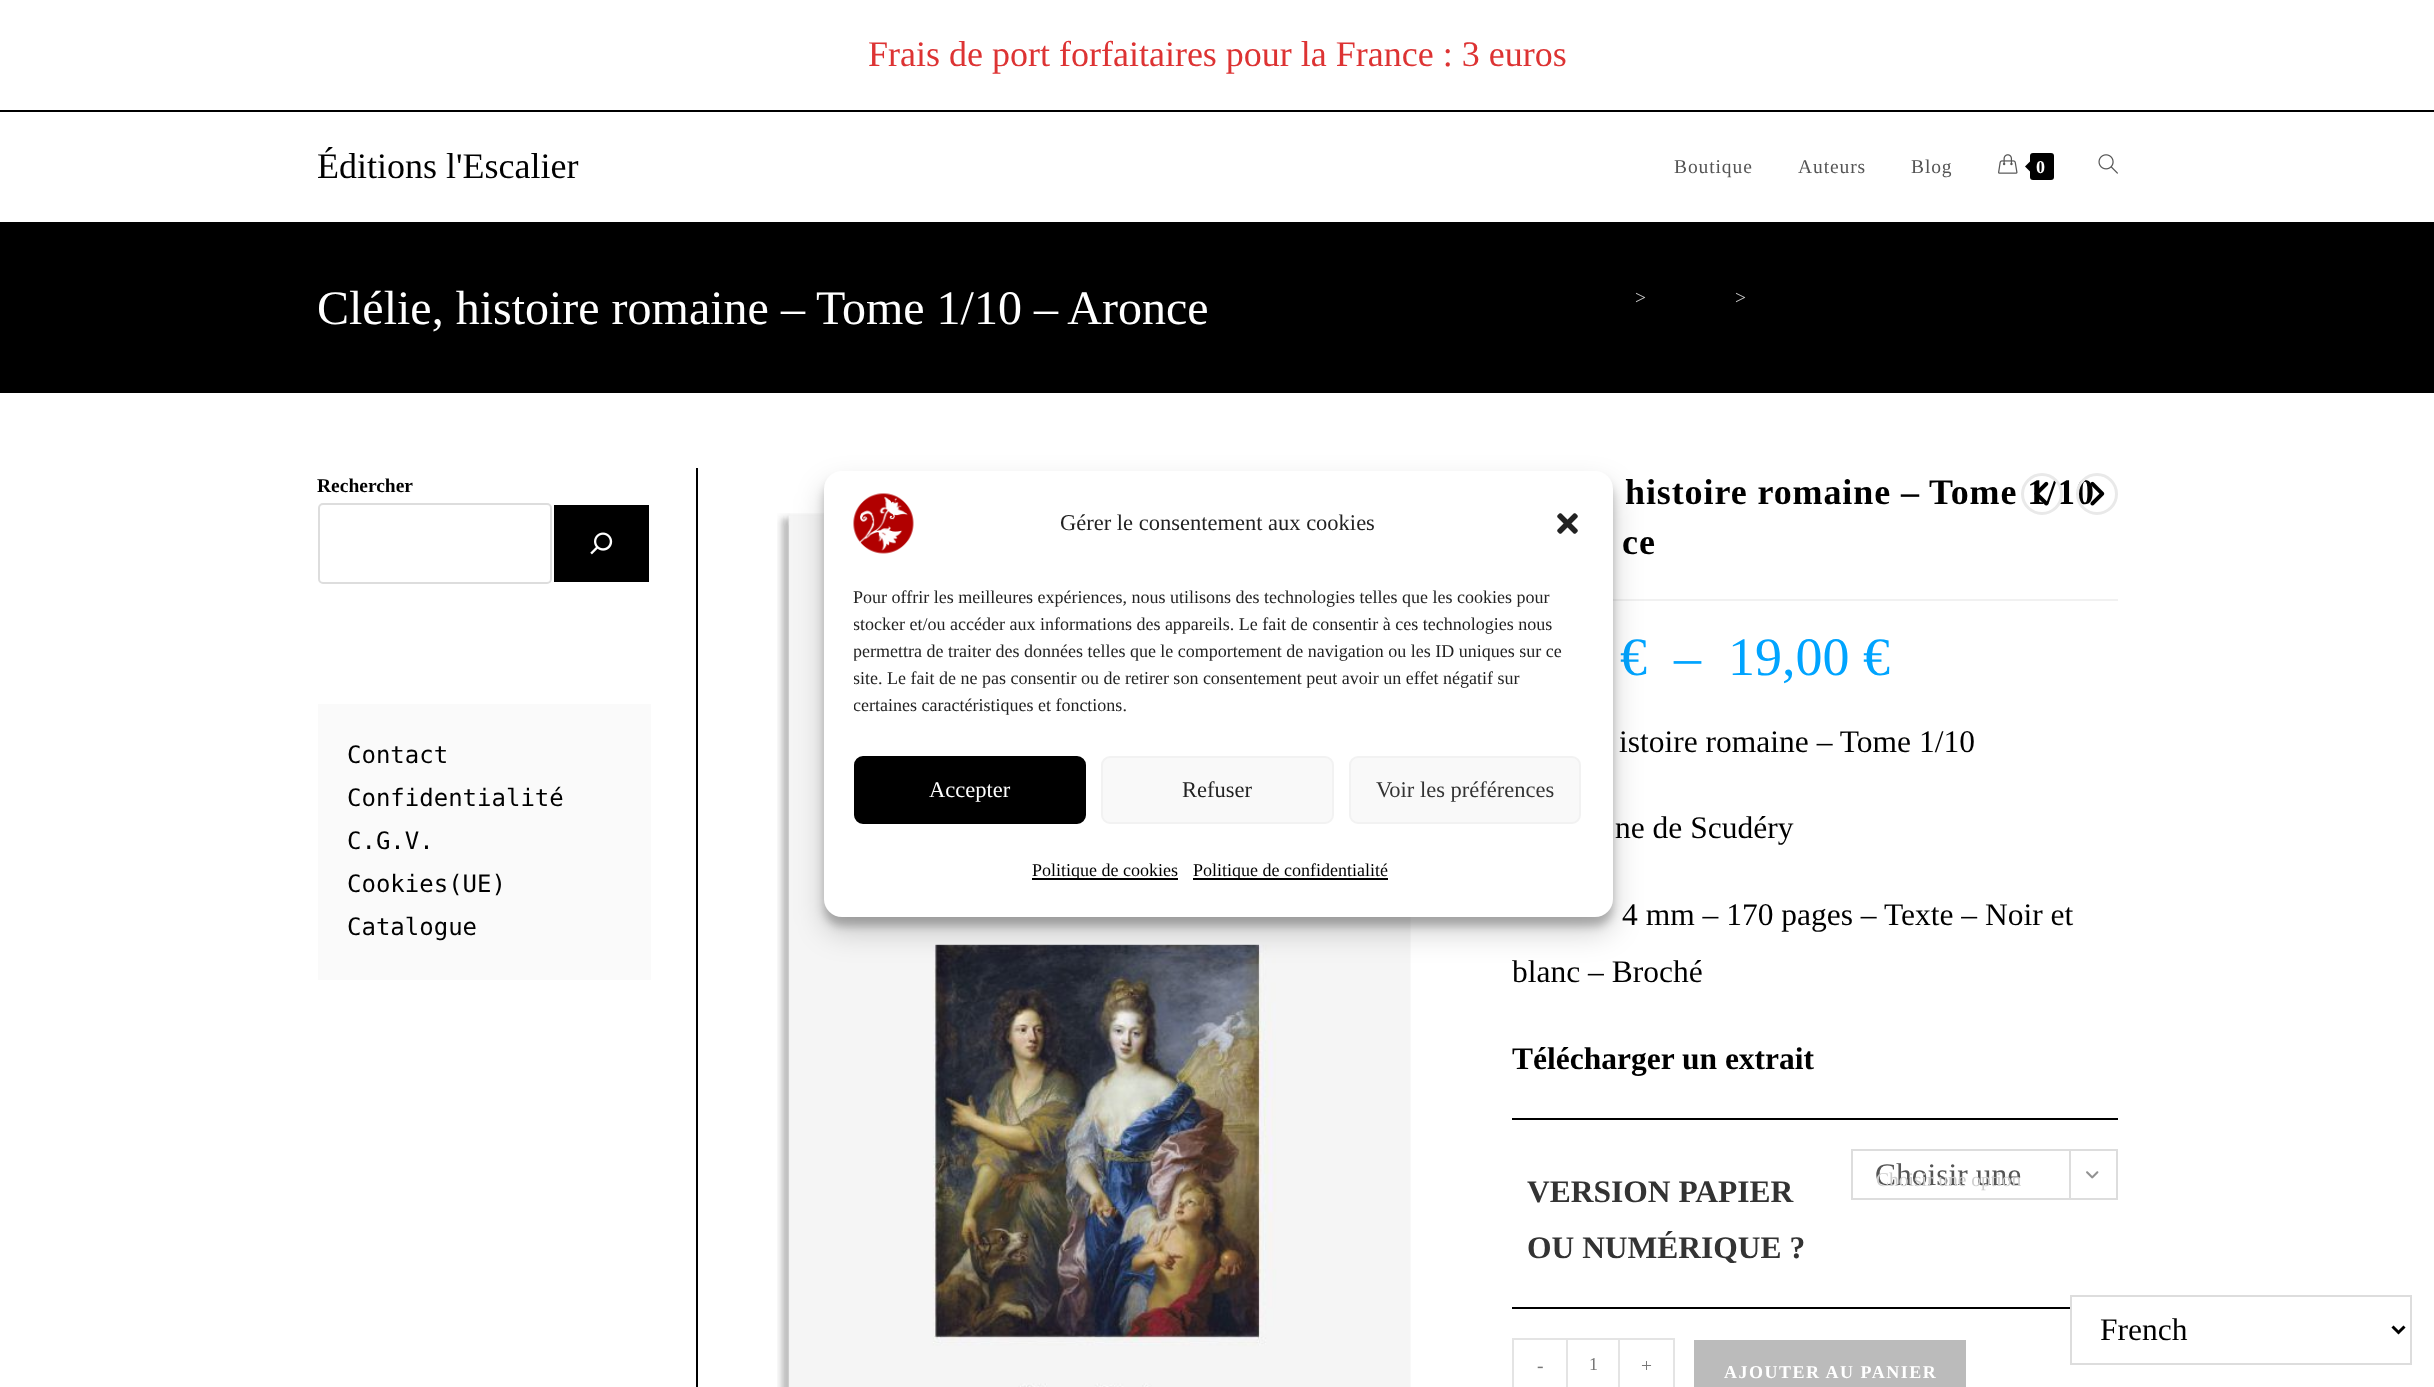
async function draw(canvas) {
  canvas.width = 2434;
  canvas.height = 1387;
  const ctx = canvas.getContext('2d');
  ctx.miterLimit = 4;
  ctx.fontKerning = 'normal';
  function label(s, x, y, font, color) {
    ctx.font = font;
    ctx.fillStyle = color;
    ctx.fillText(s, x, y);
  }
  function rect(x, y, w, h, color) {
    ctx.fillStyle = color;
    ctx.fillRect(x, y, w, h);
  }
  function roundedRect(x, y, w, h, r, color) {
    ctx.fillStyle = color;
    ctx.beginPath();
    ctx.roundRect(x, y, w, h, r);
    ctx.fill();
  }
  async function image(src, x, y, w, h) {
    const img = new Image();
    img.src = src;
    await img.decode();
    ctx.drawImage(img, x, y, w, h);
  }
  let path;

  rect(0, 0, 2434, 1387, '#fff');
  rect(0, 110, 2434, 2, '#000');
  label('Frais de port forfaitaires pour la France : 3 euros', 868, 66, '36px Liberation Serif', '#d33');
  label('Éditions l\'Escalier', 317, 178, '36px Liberation Serif', '#000');
  ctx.letterSpacing = '0.9px';
  label('Boutique', 1674, 173, '19.5px Liberation Serif', '#555');
  label('Auteurs', 1798, 173, '19.5px Liberation Serif', '#555');
  label('Blog', 1911, 173, '19.5px Liberation Serif', '#555');
  await image('assets/img1.png', 1998, 154, 20, 20);
  roundedRect(2030, 153, 24, 27, 3, '#000');
  path = new Path2D('M2032.5 159V174L2025 166.5Z');
  ctx.fill(path);
  ctx.letterSpacing = '0px';
  label('0', 2036, 173, 'bold 18px Liberation Serif', '#fff');
  await image('assets/img2.png', 2098, 154, 20, 20);
  rect(0, 222, 2434, 171, '#000');
  label('Clélie, histoire romaine – Tome 1/10 – Aronce', 317, 324, '48px Liberation Serif', '#fff');
  label('>', 1635, 304, '19.5px Liberation Serif', '#c6c6c6');
  label('>', 1735, 304, '19.5px Liberation Serif', '#c6c6c6');
  label('Rechercher', 317, 492, 'bold 19.5px Liberation Serif', '#000');
  ctx.beginPath();
  ctx.roundRect(319, 504, 232, 79, 4);
  ctx.strokeStyle = '#ddd';
  ctx.lineWidth = 2;
  ctx.stroke();
  rect(554, 505, 95, 77, '#000');
  await image('assets/img3.png', 590, 532, 23, 23);
  rect(318, 704, 333, 276, '#fafafa');
  label('Contact', 347, 763, '24px DejaVu Sans Mono', '#000');
  label('Confidentialité', 347, 806, '24px DejaVu Sans Mono', '#000');
  label('C.G.V.', 347, 849, '24px DejaVu Sans Mono', '#000');
  label('Cookies(UE)', 347, 892, '24px DejaVu Sans Mono', '#000');
  label('Catalogue', 347, 935, '24px DejaVu Sans Mono', '#000');
  rect(696, 468, 2, 919, '#000');
  ctx.letterSpacing = '0.9px';
  label('histoire romaine – Tome 1/10', 1625, 504, 'bold 36px Liberation Serif', '#000');
  ctx.beginPath();
  ctx.arc(2042, 494, 19.5, 0, 2 * Math.PI);
  ctx.strokeStyle = '#e9e9e9';
  ctx.lineWidth = 3;
  ctx.stroke();
  await image('assets/img4.png', 2034, 481, 15, 25);
  ctx.beginPath();
  ctx.arc(2097, 494, 19.5, 0, 2 * Math.PI);
  ctx.stroke();
  await image('assets/img5.png', 2090, 481, 15, 25);
  await image('assets/img6.png', 777, 513, 634, 874);
  rect(1613, 599, 505, 2, '#f1f1f1');
  label('ce', 1622, 554, 'bold 36px Liberation Serif', '#000');
  ctx.letterSpacing = '0px';
  label('€', 1620, 675, '54px Liberation Serif', '#00a4ff');
  label('–', 1674, 675, '54px Liberation Serif', '#00a4ff');
  label('19,00 €', 1728, 675, '54px Liberation Serif', '#00a4ff');
  label('istoire romaine – Tome 1/10', 1619, 752, '31.5px Liberation Serif', '#000');
  label('ne de Scudéry', 1615, 838, '31.5px Liberation Serif', '#000');
  label('4 mm – 170 pages – Texte – Noir et', 1622, 925, '31.5px Liberation Serif', '#000');
  label('blanc – Broché', 1512, 982, '31.5px Liberation Serif', '#000');
  label('Télécharger un extrait', 1512, 1069, 'bold 31.5px Liberation Serif', '#000');
  rect(1512, 1118, 606, 2, '#000');
  rect(1512, 1307, 558, 2, '#000');
  ctx.strokeStyle = '#ddd';
  ctx.lineWidth = 2;
  ctx.strokeRect(1852, 1150, 265, 49);
  label('Choisir une', 1875, 1185, '31.5px Liberation Serif', '#555');
  rect(2069, 1151, 2, 48, '#ddd');
  await image('assets/img7.png', 2086, 1171, 13, 8);
  label('Choisir une option', 1876, 1186, '19.5px Liberation Serif', '#cecece');
  label('VERSION PAPIER', 1527, 1202, 'bold 31.5px Liberation Serif', '#333');
  label('OU NUMÉRIQUE ?', 1527, 1258, 'bold 31.5px Liberation Serif', '#333');
  rect(1512, 1338, 54, 2, '#e4e4e4');
  rect(1512, 1338, 2, 49, '#e4e4e4');
  label('-', 1537, 1372, '19.5px Liberation Serif', '#777');
  ctx.strokeStyle = '#e4e4e4';
  ctx.strokeRect(1567, 1339, 52, 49);
  label('1', 1589, 1370, '18px Liberation Serif', '#777');
  rect(1620, 1338, 54, 2, '#e4e4e4');
  rect(1673, 1338, 2, 49, '#e4e4e4');
  label('+', 1641, 1372, '19.5px Liberation Serif', '#777');
  rect(1694, 1340, 272, 47, '#bbb');
  ctx.letterSpacing = '1.5px';
  label('AJOUTER AU PANIER', 1724, 1378, 'bold 18px Liberation Serif', '#fff');
  ctx.fillStyle = '#0000003b';
  ctx.filter = 'blur(4.5px)';
  ctx.beginPath();
  ctx.roundRect(824, 480, 789, 446, 18);
  ctx.fill();
  ctx.filter = 'none';
  ctx.fillStyle = '#00000030';
  ctx.filter = 'blur(15px)';
  ctx.beginPath();
  ctx.roundRect(824, 486, 789, 446, 18);
  ctx.fill();
  ctx.filter = 'none';
  roundedRect(824, 471, 789, 446, 18, '#fff');
  await image('assets/img8.png', 853, 493, 61, 61);
  ctx.letterSpacing = '0px';
  label('Gérer le consentement aux cookies', 1060, 530, '22.5px Liberation Serif', '#222');
  await image('assets/img9.png', 1557, 513, 21, 21);
  label('Pour offrir les meilleures expériences, nous utilisons des technologies telles que les cookies pour', 853, 603, '18px Liberation Serif', '#222');
  ctx.save();
  ctx.beginPath();
  ctx.rect(854, 584, 729, 142);
  ctx.clip();
  label('stocker et/ou accéder aux informations des appareils. Le fait de consentir à ces technologies nous', 853, 630, '18px Liberation Serif', '#222');
  label('permettra de traiter des données telles que le comportement de navigation ou les ID uniques sur ce', 853, 657, '18px Liberation Serif', '#222');
  label('site. Le fait de ne pas consentir ou de retirer son consentement peut avoir un effet négatif sur', 853, 684, '18px Liberation Serif', '#222');
  label('certaines caractéristiques et fonctions.', 853, 711, '18px Liberation Serif', '#222');
  ctx.restore();
  ctx.fillStyle = '#000';
  ctx.beginPath();
  ctx.roundRect(855, 757, 230, 66, 8);
  ctx.fill();
  ctx.strokeStyle = '#000';
  ctx.stroke();
  label('Accepter', 929, 797, '22.5px Liberation Serif', '#fff');
  ctx.fillStyle = '#f9f9f9';
  ctx.beginPath();
  ctx.roundRect(1102, 757, 231, 66, 8);
  ctx.fill();
  ctx.strokeStyle = '#f2f2f2';
  ctx.stroke();
  label('Refuser', 1182, 797, '22.5px Liberation Serif', '#222');
  ctx.fillStyle = '#f9f9f9';
  ctx.beginPath();
  ctx.roundRect(1350, 757, 230, 66, 8);
  ctx.fill();
  ctx.stroke();
  label('Voir les préférences', 1376, 797, '22.5px Liberation Serif', '#333');
  rect(1032, 878, 146, 2, '#000');
  label('Politique de cookies', 1032, 876, '18px Liberation Serif', '#000');
  rect(1193, 878, 195, 2, '#000');
  label('Politique de confidentialité', 1193, 876, '18px Liberation Serif', '#000');
  ctx.strokeStyle = '#ddd';
  ctx.strokeRect(2071, 1296, 340, 68);
  path = new Path2D('M2392.5 1326.5L2398.5 1332.5L2404.5 1326.5');
  ctx.strokeStyle = '#000';
  ctx.lineWidth = 3;
  ctx.stroke(path);
  label('French', 2100, 1340, '31.5px Liberation Serif', '#000');
}

draw(document.querySelector('canvas'));
